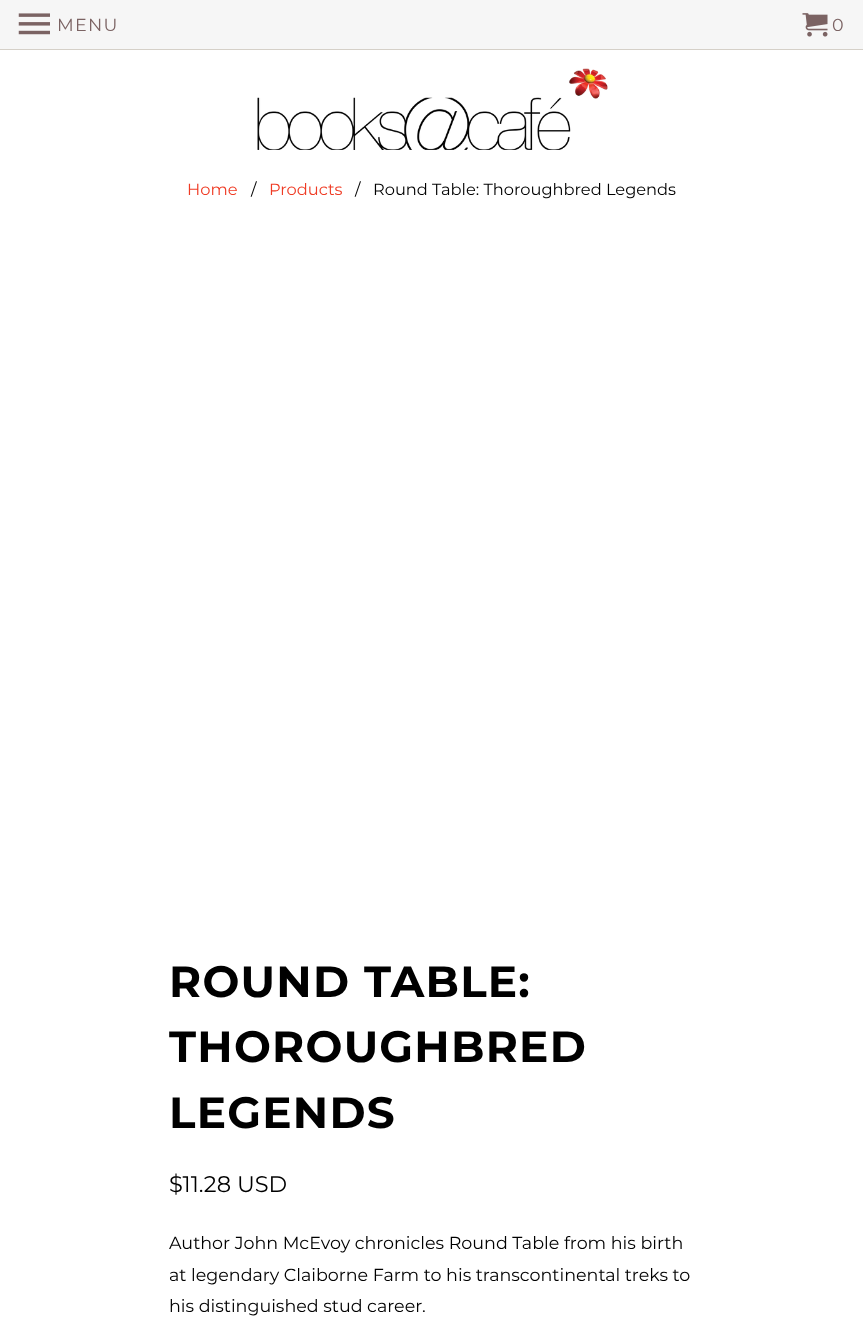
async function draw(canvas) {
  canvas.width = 863;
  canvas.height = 1336;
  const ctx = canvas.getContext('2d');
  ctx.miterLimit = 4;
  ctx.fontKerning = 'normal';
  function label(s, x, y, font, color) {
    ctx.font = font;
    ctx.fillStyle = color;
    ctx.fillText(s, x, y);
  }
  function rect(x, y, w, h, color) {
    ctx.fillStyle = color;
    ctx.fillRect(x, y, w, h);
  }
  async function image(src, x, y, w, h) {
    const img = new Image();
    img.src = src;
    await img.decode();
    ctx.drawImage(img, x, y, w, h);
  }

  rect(0, 0, 863, 1336, '#fff');
  rect(0, 0, 863, 49, '#f6f6f6');
  rect(0, 49, 863, 1, '#d5d0c8');
  await image('assets/img1.png', 18, 13, 32, 22);
  ctx.letterSpacing = '1.25px';
  label('MENU', 57, 31, '17.5px Montserrat', '#7b6363');
  await image('assets/img2.png', 802, 13, 26, 24);
  label('0', 832, 31, '17.5px Montserrat', '#7b6363');
  await image('assets/img3.png', 257, 68, 351, 82);
  ctx.letterSpacing = '0px';
  label('Home', 187, 195, '16.25px Montserrat', '#ef3b24');
  label('/', 251, 195, '16.25px Montserrat', '#000');
  label('Products', 269, 195, '16.25px Montserrat', '#ef3b24');
  label('/', 355, 195, '16.25px Montserrat', '#000');
  label('Round Table: Thoroughbred Legends', 373, 195, '16.25px Montserrat', '#000');
  ctx.letterSpacing = '1.25px';
  label('ROUND TABLE:', 169, 997, 'bold 43.75px Montserrat', '#000');
  label('THOROUGHBRED', 169, 1062, 'bold 43.75px Montserrat', '#000');
  label('LEGENDS', 169, 1128, 'bold 43.75px Montserrat', '#000');
  ctx.letterSpacing = '0px';
  label('$11.28 USD', 169, 1192, '22.5px Montserrat', '#000');
  label('Author John McEvoy chronicles Round Table from his birth', 169, 1249, '17.5px Montserrat', '#000');
  label('at legendary Claiborne Farm to his transcontinental treks to', 169, 1281, '17.5px Montserrat', '#000');
  label('his distinguished stud career.', 169, 1312, '17.5px Montserrat', '#000');
}

draw(document.querySelector('canvas'));
